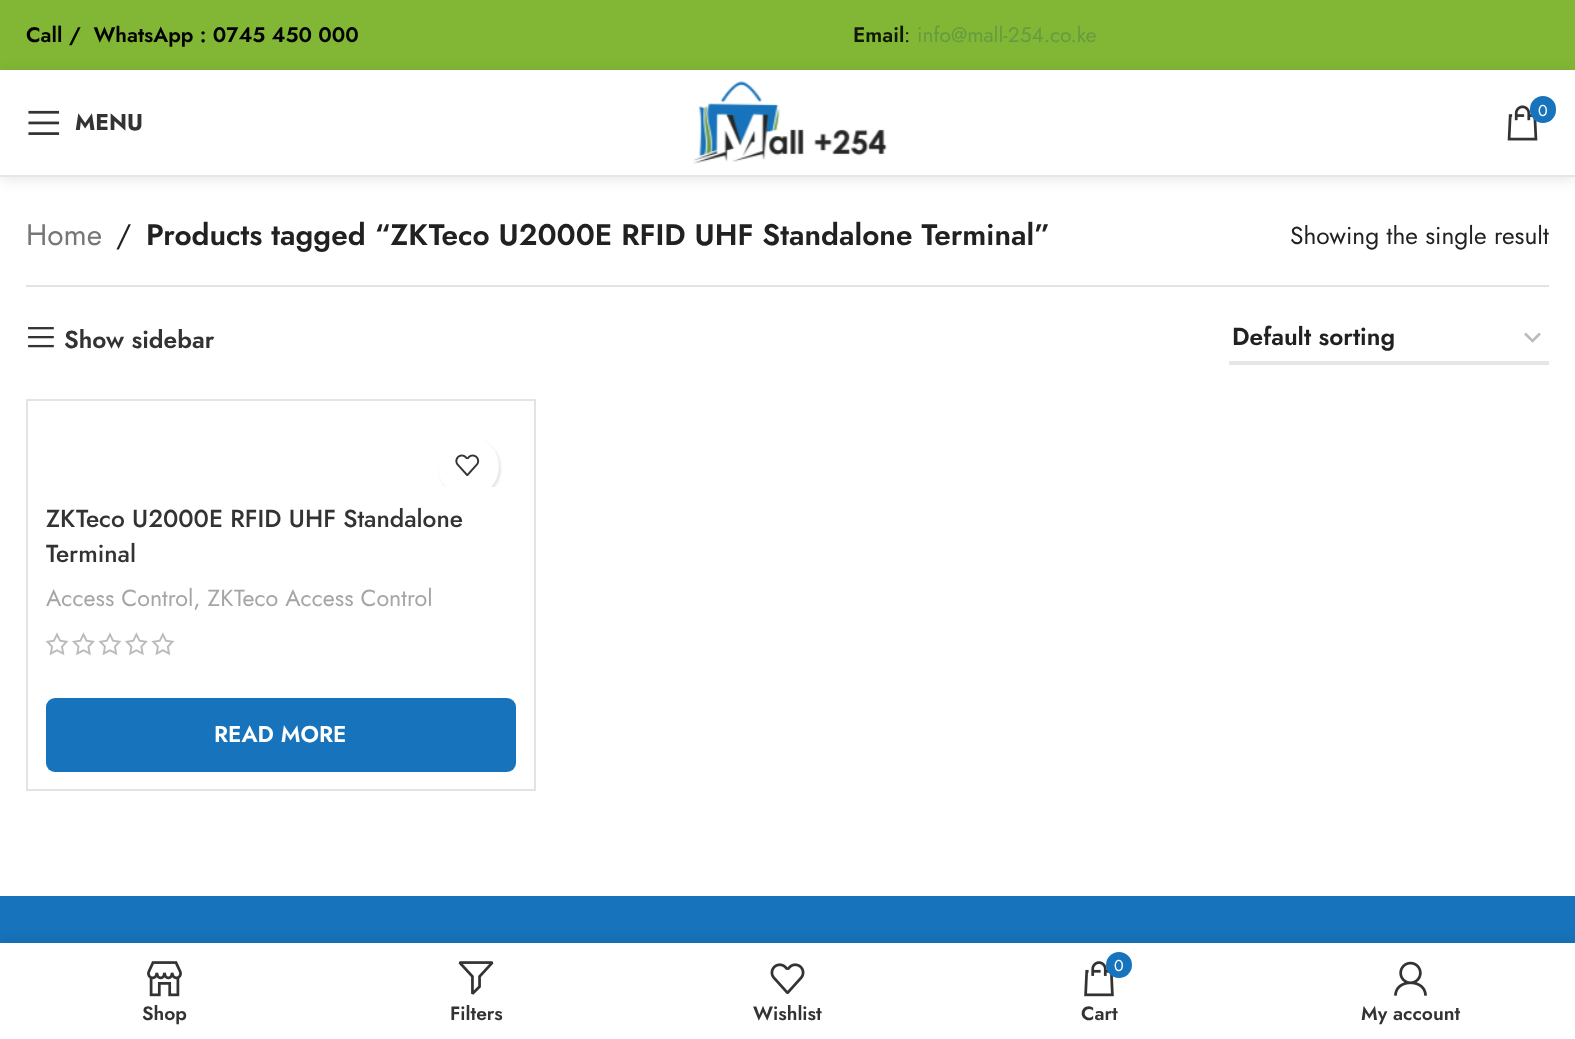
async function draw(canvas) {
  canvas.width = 1575;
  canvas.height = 1039;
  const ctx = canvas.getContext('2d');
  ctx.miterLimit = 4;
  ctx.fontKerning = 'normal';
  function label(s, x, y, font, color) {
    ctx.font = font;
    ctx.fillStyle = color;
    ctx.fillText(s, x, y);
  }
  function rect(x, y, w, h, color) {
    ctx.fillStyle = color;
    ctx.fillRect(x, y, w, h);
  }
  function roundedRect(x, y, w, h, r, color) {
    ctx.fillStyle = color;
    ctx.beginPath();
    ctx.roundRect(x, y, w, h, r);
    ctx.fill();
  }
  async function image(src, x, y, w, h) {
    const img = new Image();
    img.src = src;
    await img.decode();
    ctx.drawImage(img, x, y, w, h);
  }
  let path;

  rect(0, 0, 1575, 1039, '#fff');
  rect(0, 0, 1575, 70, '#82b735');
  label('Call /  WhatsApp : 0745 450 000', 26, 42, '600 21px Jost', '#000');
  label('Email', 853, 42, '600 21px Jost', '#111807');
  label(':', 904, 42, '21px Jost', '#111807');
  label('info@mall-254.co.ke', 917, 42, '21px Jost', '#669b41');
  ctx.fillStyle = '#0000001a';
  ctx.filter = 'blur(7px)';
  ctx.beginPath();
  ctx.rect(0, 72, 1575, 107);
  ctx.fill();
  ctx.filter = 'none';
  rect(0, 70, 1575, 105, '#fff');
  rect(0, 175, 1575, 2, '#e6e6e6');
  await image('assets/img1.png', 693, 81, 194, 83);
  await image('assets/img2.png', 1507, 105, 31, 36);
  roundedRect(1530, 96, 26, 27, 13, '#1773bb');
  label('0', 1538, 116, '16px Jost', '#fff');
  await image('assets/img3.png', 28, 110, 32, 25);
  label('MENU', 75, 130, 'bold 22.75px Jost', '#333');
  rect(26, 285, 1523, 2, '#e4e4e4');
  label('Home', 26, 245, '29.75px Jost', '#767676');
  label('/', 116, 245, '29.75px Jost', '#212121');
  label('Products tagged “ZKTeco U2000E RFID UHF Standalone Terminal”', 146, 245, '600 29.75px Jost', '#212121');
  label('Showing the single result', 1290, 244, '24.5px Jost', '#212121');
  await image('assets/img4.png', 28, 327, 26, 21);
  label('Show sidebar', 64, 348, '600 24.5px Jost', '#333');
  path = new Path2D('M1525 333.5L1532.5 341L1540 333.5');
  ctx.strokeStyle = '#bbb';
  ctx.lineWidth = 2.5;
  ctx.stroke(path);
  rect(1229, 361, 320, 4, '#e6e6e6');
  label('Default sorting', 1232, 345, '600 24.5px Jost', '#212121');
  rect(26, 399, 2, 392, '#e4e4e4');
  path = new Path2D('M28 399H536L534 401H28Z');
  ctx.fill(path);
  ctx.fillStyle = '#0000001c';
  path = new Path2D('M536 399V791L534 789V401Z');
  ctx.fill(path);
  path = new Path2D('M536 791H28V789H534Z');
  ctx.fill(path);
  ctx.save();
  ctx.beginPath();
  ctx.roundRect(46, 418, 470, 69, 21);
  ctx.clip();
  ctx.fillStyle = '#0000001a';
  ctx.filter = 'blur(1px)';
  ctx.beginPath();
  ctx.roundRect(439, 438, 62, 61, 30.5);
  ctx.fill();
  ctx.filter = 'none';
  ctx.restore();
  ctx.save();
  ctx.beginPath();
  ctx.roundRect(46, 418, 470, 69, 21);
  ctx.clip();
  ctx.fillStyle = '#fff';
  ctx.beginPath();
  ctx.arc(468.5, 466.5, 30.5, 0, 2 * Math.PI);
  ctx.fill();
  ctx.restore();
  await image('assets/img5.png', 455, 454, 25, 22);
  label('ZKTeco U2000E RFID UHF Standalone', 46, 527, '500 24.5px Jost', '#333');
  label('Terminal', 46, 562, '500 24.5px Jost', '#333');
  label('Access Control, ZKTeco Access Control', 46, 606, '23.25px Jost', '#a5a5a5');
  await image('assets/img6.png', 45, 632, 130, 24);
  roundedRect(46, 698, 470, 74, 9, '#1773bb');
  label('READ MORE', 214, 742, '600 22.75px Jost', '#fff');
  rect(0, 896, 1575, 47, '#1773bb');
  ctx.fillStyle = '#0000001f';
  ctx.filter = 'blur(8px)';
  ctx.beginPath();
  ctx.rect(0, 943, 1575, 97);
  ctx.fill();
  ctx.filter = 'none';
  rect(0, 943, 1575, 96, '#fff');
  await image('assets/img7.png', 147, 961, 35, 36);
  label('Shop', 142, 1020, '600 19.25px Jost', '#333');
  await image('assets/img8.png', 458, 961, 36, 34);
  label('Filters', 450, 1020, '600 19.25px Jost', '#333');
  await image('assets/img9.png', 770, 963, 35, 31);
  label('Wishlist', 753, 1020, '600 19.25px Jost', '#333');
  await image('assets/img10.png', 1084, 961, 30, 36);
  ctx.fillStyle = '#1773bb';
  ctx.beginPath();
  ctx.arc(1119, 965, 13, 0, 2 * Math.PI);
  ctx.fill();
  label('0', 1114, 971, '16px Jost', '#fff');
  label('Cart', 1081, 1020, '600 19.25px Jost', '#333');
  await image('assets/img11.png', 1394, 961, 33, 35);
  label('My account', 1361, 1020, '600 19.25px Jost', '#333');
}

draw(document.querySelector('canvas'));
